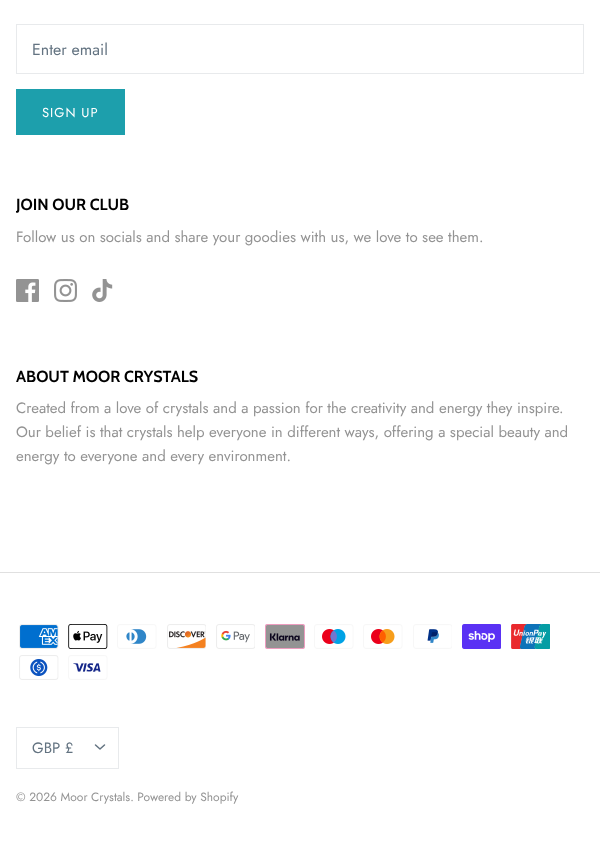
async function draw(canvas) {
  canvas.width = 600;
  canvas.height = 866;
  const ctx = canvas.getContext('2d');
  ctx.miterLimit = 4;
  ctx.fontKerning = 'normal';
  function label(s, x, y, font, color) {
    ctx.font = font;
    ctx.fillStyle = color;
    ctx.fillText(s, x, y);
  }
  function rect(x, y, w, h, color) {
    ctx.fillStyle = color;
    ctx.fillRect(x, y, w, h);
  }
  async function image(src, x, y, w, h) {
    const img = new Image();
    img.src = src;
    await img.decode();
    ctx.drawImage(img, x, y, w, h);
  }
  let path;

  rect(0, 0, 600, 866, '#fff');
  ctx.strokeStyle = '#e8eaec';
  ctx.strokeRect(16.5, 24.5, 567, 49);
  label('Enter email', 32, 55, '16px Jost', '#637381');
  rect(16, 89, 109, 46, '#1d9fac');
  ctx.letterSpacing = '1px';
  label('SIGN UP', 42, 117, '13px Jost', '#fff');
  ctx.letterSpacing = '0px';
  label('JOIN OUR CLUB', 16, 210, 'bold 16.1px Cabin', '#000');
  label('Follow us on socials and share your goodies with us, we love to see them.', 16, 242, '15px Jost', '#939393');
  await image('assets/img1.png', 16, 279, 23, 23);
  await image('assets/img2.png', 54, 279, 23, 23);
  await image('assets/img3.png', 92, 279, 21, 23);
  label('ABOUT MOOR CRYSTALS', 16, 382, 'bold 16.1px Cabin', '#000');
  label('Created from a love of crystals and a passion for the creativity and energy they inspire.', 16, 413, '15px Jost', '#939393');
  label('Our belief is that crystals help everyone in different ways, offering a special beauty and', 16, 437, '15px Jost', '#939393');
  label('energy to everyone and every environment.', 16, 461, '15px Jost', '#939393');
  rect(0, 572, 600, 1, '#e0e0e0');
  await image('assets/img4.png', 19, 624, 40, 25);
  await image('assets/img5.png', 68, 624, 40, 25);
  await image('assets/img6.png', 117, 624, 40, 25);
  await image('assets/img7.png', 167, 624, 39, 25);
  await image('assets/img8.png', 216, 624, 39, 25);
  await image('assets/img9.png', 265, 624, 40, 25);
  await image('assets/img10.png', 314, 624, 40, 25);
  await image('assets/img11.png', 363, 624, 40, 25);
  await image('assets/img12.png', 413, 624, 39, 25);
  await image('assets/img13.png', 462, 624, 39, 25);
  await image('assets/img14.png', 511, 624, 39, 25);
  await image('assets/img15.png', 19, 655, 40, 25);
  await image('assets/img16.png', 68, 655, 40, 25);
  ctx.strokeRect(16.5, 727.5, 102, 41);
  label('GBP £', 32, 753, '15px Jost', '#637381');
  path = new Path2D('M95.5 745L100 749L104.5 745');
  ctx.strokeStyle = '#637381';
  ctx.lineWidth = 1.5;
  ctx.lineCap = 'round';
  ctx.lineJoin = 'round';
  ctx.stroke(path);
  label('© 2026 Moor Crystals. Powered by Shopify', 16, 801, '12px Jost', '#939393');
}

draw(document.querySelector('canvas'));
